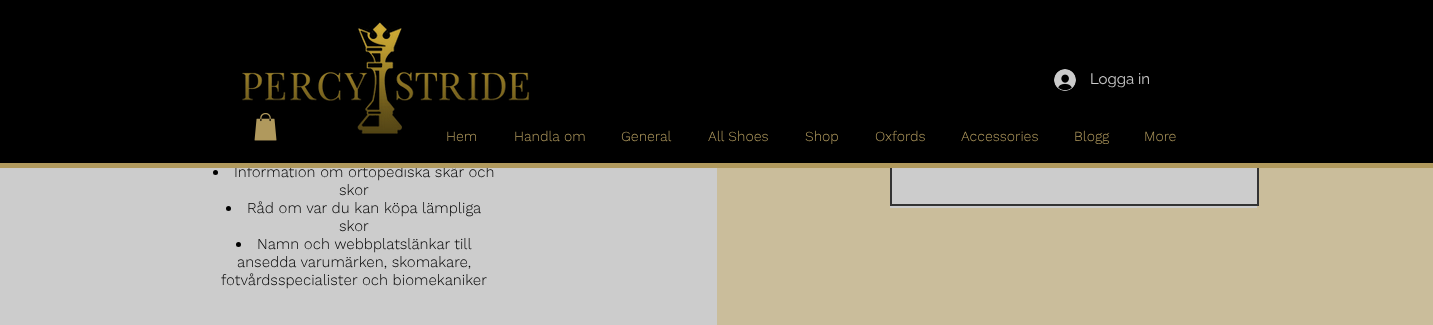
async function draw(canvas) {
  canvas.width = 1433;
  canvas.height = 325;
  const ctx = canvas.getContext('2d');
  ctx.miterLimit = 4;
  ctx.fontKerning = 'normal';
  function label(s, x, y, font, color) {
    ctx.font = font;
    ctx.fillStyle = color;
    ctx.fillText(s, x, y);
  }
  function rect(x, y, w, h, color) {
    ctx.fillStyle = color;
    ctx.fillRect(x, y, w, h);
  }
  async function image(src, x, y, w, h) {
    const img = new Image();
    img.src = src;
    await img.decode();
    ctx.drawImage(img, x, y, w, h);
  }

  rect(0, 0, 1433, 325, '#ccc');
  rect(717, 168, 716, 157, '#cabd9b');
  rect(892, 168, 365, 36, '#ccc');
  ctx.strokeStyle = '#333';
  ctx.lineWidth = 2;
  ctx.strokeRect(891, -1, 367, 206);
  rect(0, 0, 1433, 163, '#000');
  label('Information om ortopediska skär och', 234, 177, '300 15px Work Sans', '#000');
  rect(0, 163, 1433, 5, '#b0995d');
  await image('assets/img1.png', 242, 22, 288, 112);
  await image('assets/img2.png', 1054, 69, 22, 22);
  label('Logga in', 1090, 84, '15px Raleway', '#ccc');
  await image('assets/img3.png', 254, 113, 23, 28);
  label('Hem', 446, 141, '300 14px Work Sans', '#b0995d');
  label('Handla om', 514, 141, '300 14px Work Sans', '#b0995d');
  label('General', 621, 141, '300 14px Work Sans', '#b0995d');
  label('All Shoes', 708, 141, '300 14px Work Sans', '#b0995d');
  label('Shop', 805, 141, '300 14px Work Sans', '#b0995d');
  label('Oxfords', 875, 141, '300 14px Work Sans', '#b0995d');
  label('Accessories', 961, 141, '300 14px Work Sans', '#b0995d');
  label('Blogg', 1074, 141, '300 14px Work Sans', '#b0995d');
  label('More', 1144, 141, '300 14px Work Sans', '#b0995d');
  ctx.fillStyle = '#000';
  ctx.beginPath();
  ctx.arc(215.5, 172.5, 2.5, 0, 2 * Math.PI);
  ctx.fill();
  label('skor', 339, 195, '300 15px Work Sans', '#000');
  ctx.beginPath();
  ctx.arc(228.5, 208.5, 2.5, 0, 2 * Math.PI);
  ctx.fill();
  label('Råd om var du kan köpa lämpliga', 247, 213, '300 15px Work Sans', '#000');
  label('skor', 339, 231, '300 15px Work Sans', '#000');
  ctx.beginPath();
  ctx.arc(238.5, 244.5, 2.5, 0, 2 * Math.PI);
  ctx.fill();
  label('Namn och webbplatslänkar till', 257, 249, '300 15px Work Sans', '#000');
  label('ansedda varumärken, skomakare,', 237, 267, '300 15px Work Sans', '#000');
  label('fotvårdsspecialister och biomekaniker', 221, 285, '300 15px Work Sans', '#000');
  rect(890, 206, 367, 2, '#ccc');
}

draw(document.querySelector('canvas'));
